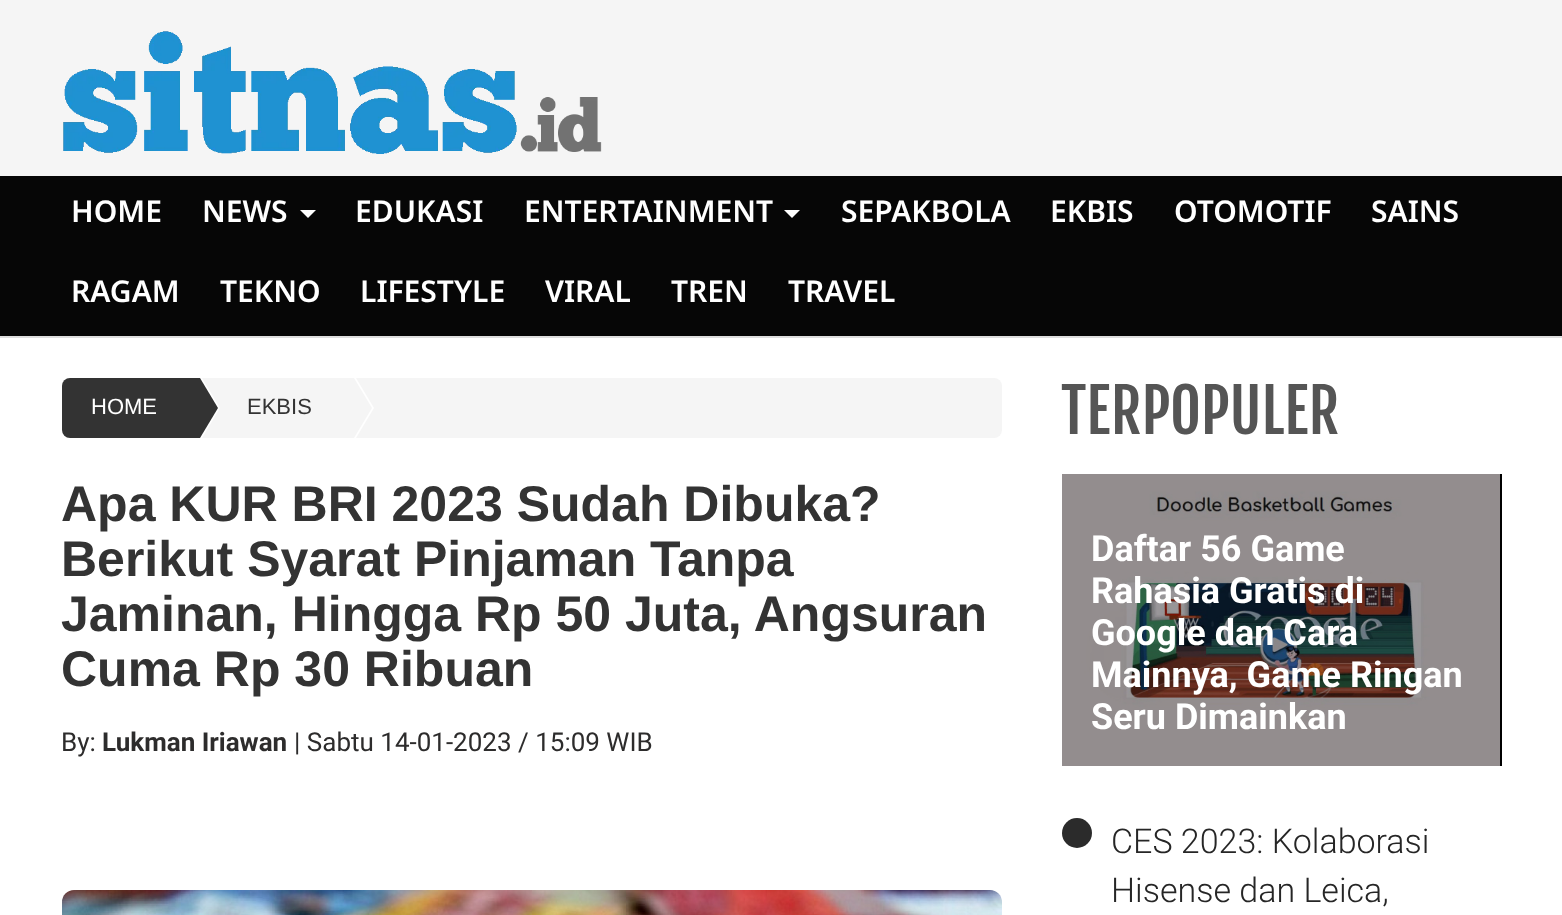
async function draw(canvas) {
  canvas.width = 1562;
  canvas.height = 915;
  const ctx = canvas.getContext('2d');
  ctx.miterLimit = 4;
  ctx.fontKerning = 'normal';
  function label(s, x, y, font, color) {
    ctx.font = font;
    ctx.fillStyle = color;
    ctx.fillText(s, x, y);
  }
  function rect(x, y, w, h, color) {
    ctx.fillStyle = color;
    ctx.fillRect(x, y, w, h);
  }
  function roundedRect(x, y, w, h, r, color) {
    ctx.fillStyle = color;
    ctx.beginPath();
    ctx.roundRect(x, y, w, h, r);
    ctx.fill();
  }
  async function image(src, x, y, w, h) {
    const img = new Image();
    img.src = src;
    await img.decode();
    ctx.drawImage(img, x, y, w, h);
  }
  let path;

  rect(0, 0, 1562, 915, '#fff');
  rect(0, 0, 1562, 176, '#f5f5f5');
  await image('assets/img1.png', 63, 31, 539, 123);
  rect(0, 176, 1562, 160, '#060606');
  rect(0, 336, 1562, 2, '#dedede');
  label('HOME', 71, 222, '600 30px Noto Sans', '#fff');
  label('NEWS', 202, 222, '600 30px Noto Sans', '#fff');
  path = new Path2D('M300 210H316L308 218Z');
  ctx.fill(path);
  label('EDUKASI', 355, 222, '600 30px Noto Sans', '#fff');
  label('ENTERTAINMENT', 524, 222, '600 30px Noto Sans', '#fff');
  path = new Path2D('M784 210H800L792 218Z');
  ctx.fill(path);
  label('SEPAKBOLA', 841, 222, '600 30px Noto Sans', '#fff');
  label('EKBIS', 1050, 222, '600 30px Noto Sans', '#fff');
  label('OTOMOTIF', 1174, 222, '600 30px Noto Sans', '#fff');
  label('SAINS', 1371, 222, '600 30px Noto Sans', '#fff');
  label('RAGAM', 71, 302, '600 30px Noto Sans', '#fff');
  label('TEKNO', 220, 302, '600 30px Noto Sans', '#fff');
  label('LIFESTYLE', 360, 302, '600 30px Noto Sans', '#fff');
  label('VIRAL', 545, 302, '600 30px Noto Sans', '#fff');
  label('TREN', 671, 302, '600 30px Noto Sans', '#fff');
  label('TRAVEL', 788, 302, '600 30px Noto Sans', '#fff');
  roundedRect(62, 378, 940, 60, 8, '#f5f5f5');
  ctx.fillStyle = '#333';
  ctx.beginPath();
  ctx.roundRect(62, 378, 96, 60, [8, 0, 0, 8]);
  ctx.fill();
  ctx.fillStyle = '#fff';
  path = new Path2D('M202 378L220 408L202 438H160V378Z');
  ctx.fill(path);
  ctx.fillStyle = '#333';
  path = new Path2D('M200 378L218 408L200 438H158V378Z');
  ctx.fill(path);
  label('HOME', 91, 414, '22px Liberation Sans', '#fff');
  path = new Path2D('M356 378L374 408L356 438H314V378Z');
  ctx.fill(path);
  ctx.fillStyle = '#f5f5f5';
  path = new Path2D('M354 378L372 408L354 438H312V378Z');
  ctx.fill(path);
  label('EKBIS', 247, 414, '22px Liberation Sans', '#333');
  label('Apa KUR BRI 2023 Sudah Dibuka?', 61, 521, 'bold 50px Liberation Sans', '#333');
  label('Berikut Syarat Pinjaman Tanpa', 61, 576, 'bold 50px Liberation Sans', '#333');
  label('Jaminan, Hingga Rp 50 Juta, Angsuran', 61, 631, 'bold 50px Liberation Sans', '#333');
  label('Cuma Rp 30 Ribuan', 61, 686, 'bold 50px Liberation Sans', '#333');
  label('By:', 61, 751, '26px Roboto', '#2d2c2c');
  label('Lukman Iriawan', 102, 751, 'bold 26px Roboto', '#2d2c2c');
  label('| Sabtu 14-01-2023 / 15:09 WIB', 294, 751, '26px Roboto', '#2d2c2c');
  await image('assets/img2.png', 62, 890, 940, 25);
  label('TERPOPULER', 1061, 434, '60px Fjalla One', '#555');
  rect(1062, 474, 440, 292, '#000');
  await image('assets/img3.png', 1062, 474, 438, 292);
  label('Daftar 56 Game', 1091, 561, 'bold 36px Roboto', '#fff');
  label('Rahasia Gratis di', 1091, 603, 'bold 36px Roboto', '#fff');
  label('Google dan Cara', 1091, 645, 'bold 36px Roboto', '#fff');
  label('Mainnya, Game Ringan', 1091, 687, 'bold 36px Roboto', '#fff');
  label('Seru Dimainkan', 1091, 729, 'bold 36px Roboto', '#fff');
  ctx.fillStyle = '#2b2b2b';
  ctx.beginPath();
  ctx.arc(1077, 833, 15, 0, 2 * Math.PI);
  ctx.fill();
  label('CES 2023: Kolaborasi', 1111, 853, '300 34px Roboto', '#262626');
  label('Hisense dan Leica,', 1111, 902, '300 34px Roboto', '#262626');
}

draw(document.querySelector('canvas'));
